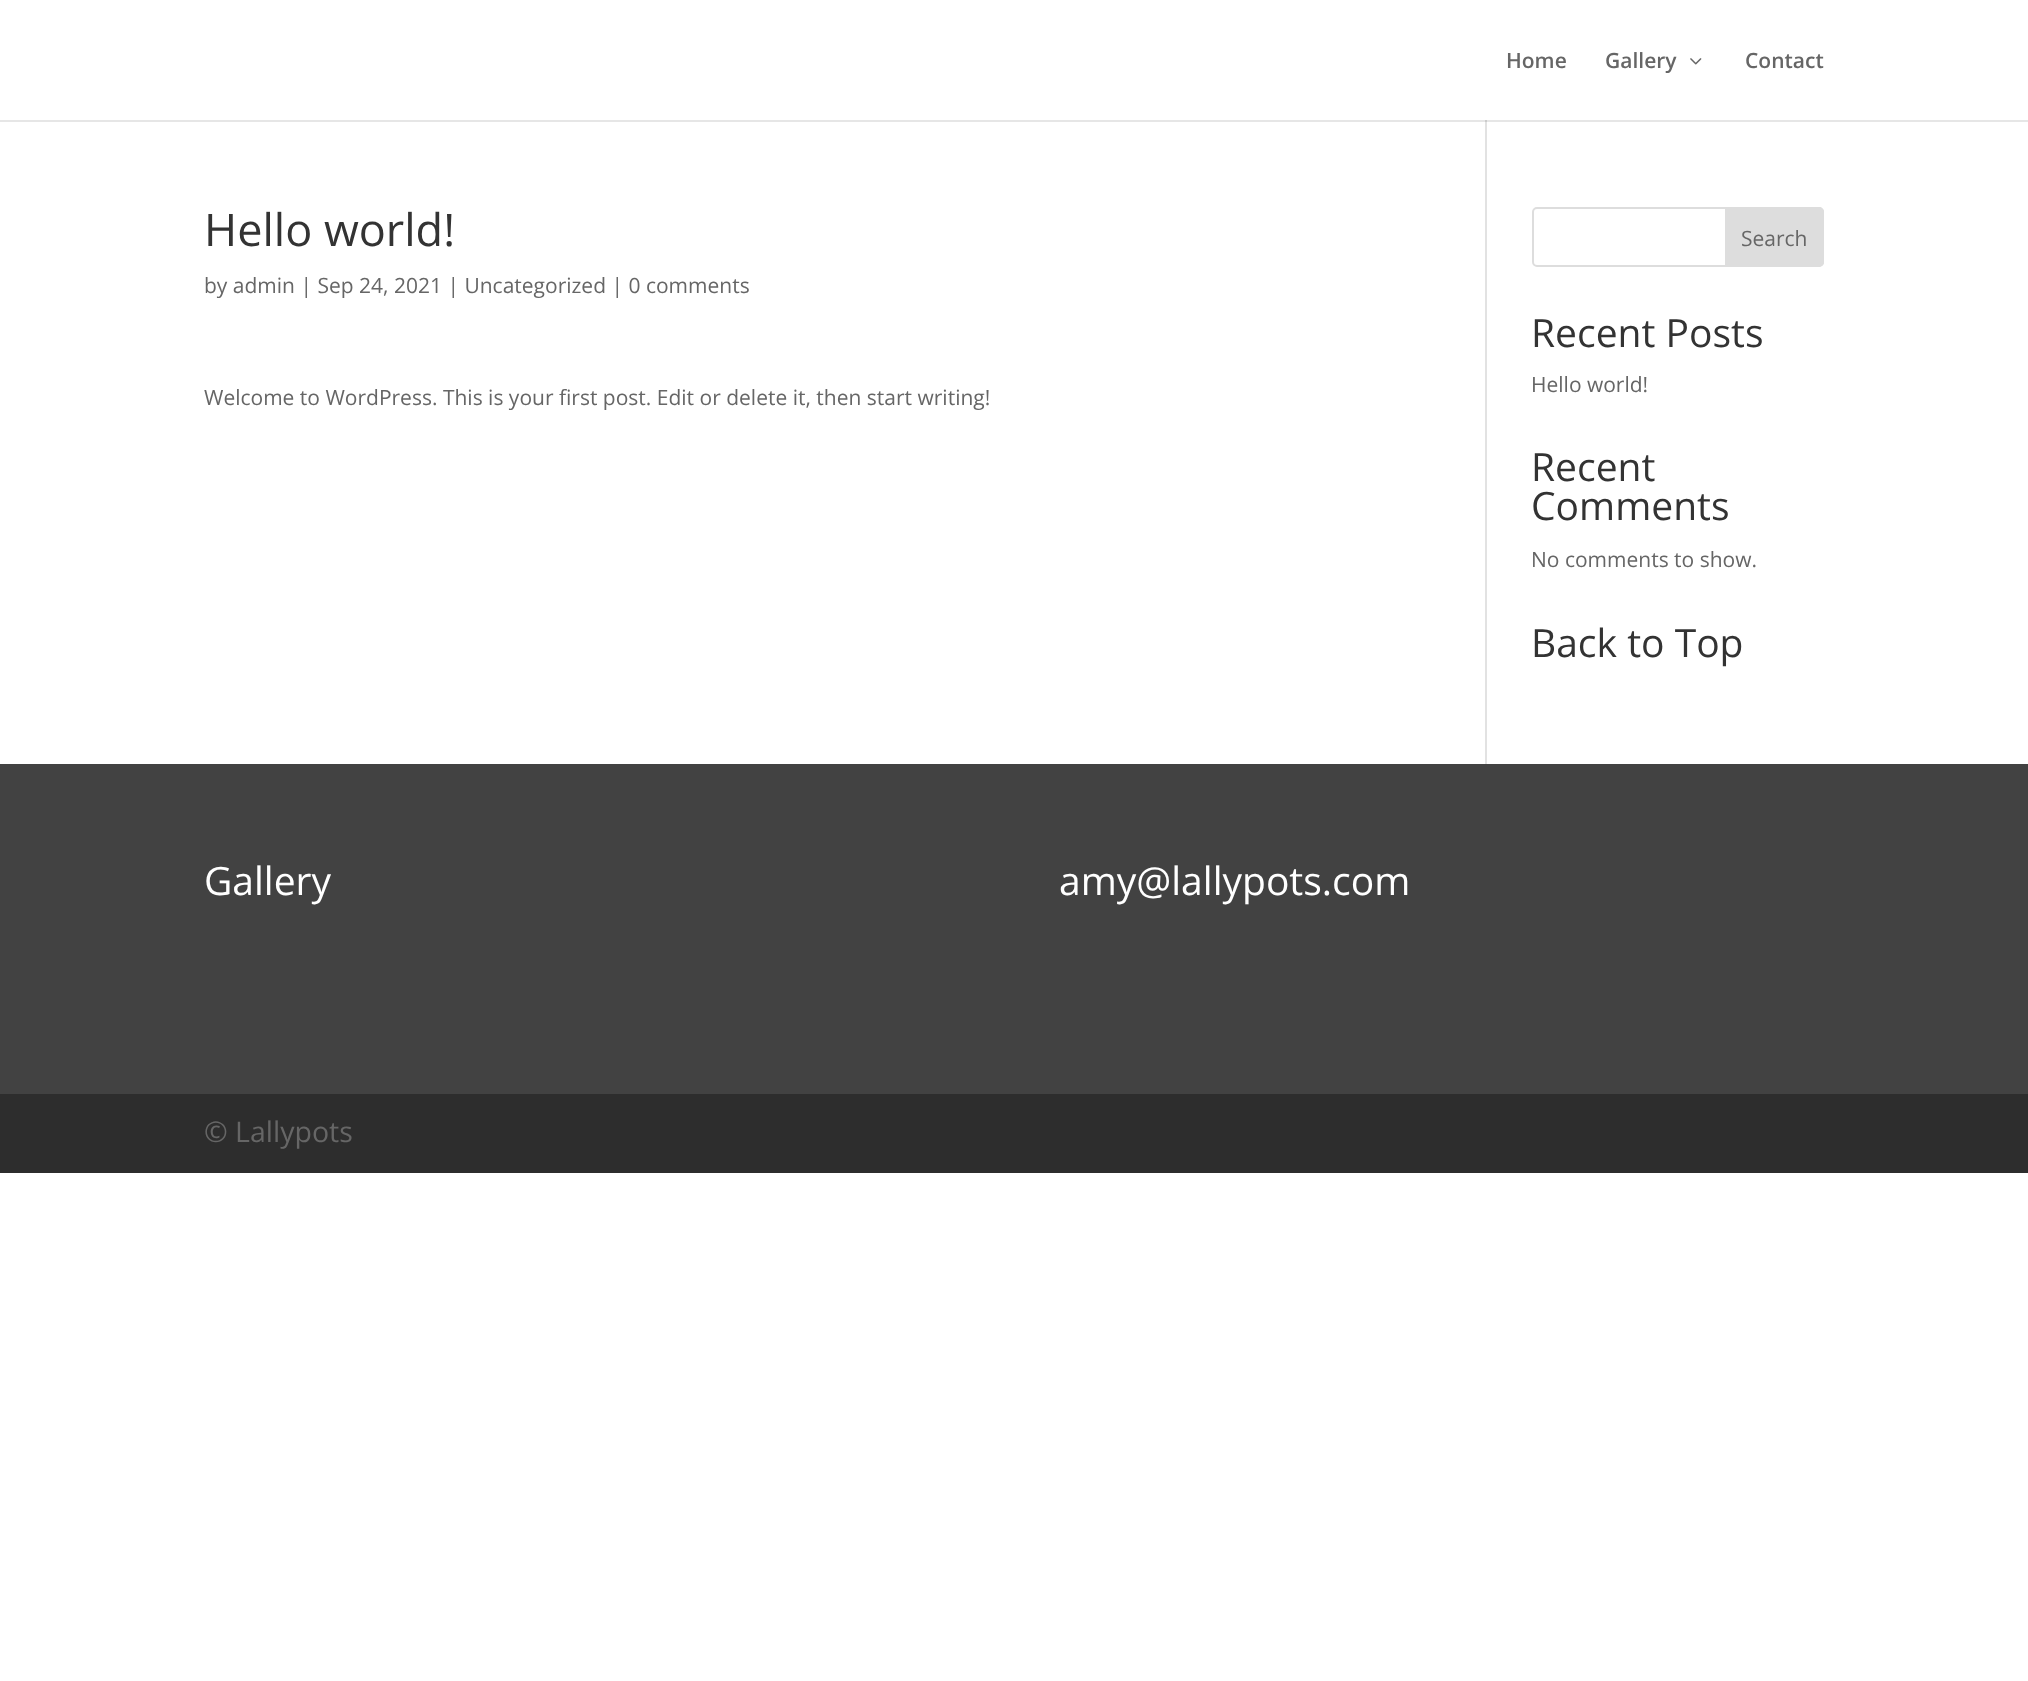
async function draw(canvas) {
  canvas.width = 2028;
  canvas.height = 1681;
  const ctx = canvas.getContext('2d');
  ctx.miterLimit = 4;
  ctx.fontKerning = 'normal';
  function label(s, x, y, font, color) {
    ctx.font = font;
    ctx.fillStyle = color;
    ctx.fillText(s, x, y);
  }
  function rect(x, y, w, h, color) {
    ctx.fillStyle = color;
    ctx.fillRect(x, y, w, h);
  }
  async function image(src, x, y, w, h) {
    const img = new Image();
    img.src = src;
    await img.decode();
    ctx.drawImage(img, x, y, w, h);
  }

  rect(0, 0, 2028, 1681, '#fff');
  rect(0, 120, 2028, 2, '#e6e6e6');
  label('Home', 1506, 68, '600 21px Open Sans', '#666');
  label('Gallery', 1605, 68, '600 21px Open Sans', '#666');
  await image('assets/img1.png', 1690, 58, 12, 7);
  label('Contact', 1745, 68, '600 21px Open Sans', '#666');
  rect(1485, 120, 2, 644, '#e2e2e2');
  rect(1485, 120, 2, 2, '#cbcbcb');
  label('Hello world!', 204, 246, '45px Open Sans', '#333');
  label('by admin | Sep 24, 2021 | Uncategorized | 0 comments', 204, 293, '21px Open Sans', '#666');
  label('Welcome to WordPress. This is your first post. Edit or delete it, then start writing!', 204, 405, '21px Open Sans', '#666');
  ctx.beginPath();
  ctx.roundRect(1533, 208, 290, 58, 4);
  ctx.strokeStyle = '#ddd';
  ctx.lineWidth = 2;
  ctx.stroke();
  ctx.fillStyle = '#ddd';
  ctx.beginPath();
  ctx.roundRect(1726, 208, 97, 58, [0, 4, 4, 0]);
  ctx.fill();
  ctx.stroke();
  label('Search', 1741, 246, '21px Open Sans', '#666');
  label('Recent Posts', 1531, 347, '39px Open Sans', '#333');
  label('Hello world!', 1531, 392, '21px Open Sans', '#666');
  label('Recent', 1531, 481, '39px Open Sans', '#333');
  label('Comments', 1531, 520, '39px Open Sans', '#333');
  label('No comments to show.', 1531, 567, '21px Open Sans', '#666');
  label('Back to Top', 1531, 657, '39px Open Sans', '#333');
  rect(0, 764, 2028, 330, '#424242');
  label('Gallery', 204, 895, '39px Open Sans', '#fff');
  label('amy@lallypots.com', 1059, 895, '39px Open Sans', '#fff');
  rect(0, 1094, 2028, 79, '#2d2d2d');
  label('© Lallypots', 204, 1142, '28.5px Open Sans', '#666');
}

draw(document.querySelector('canvas'));
